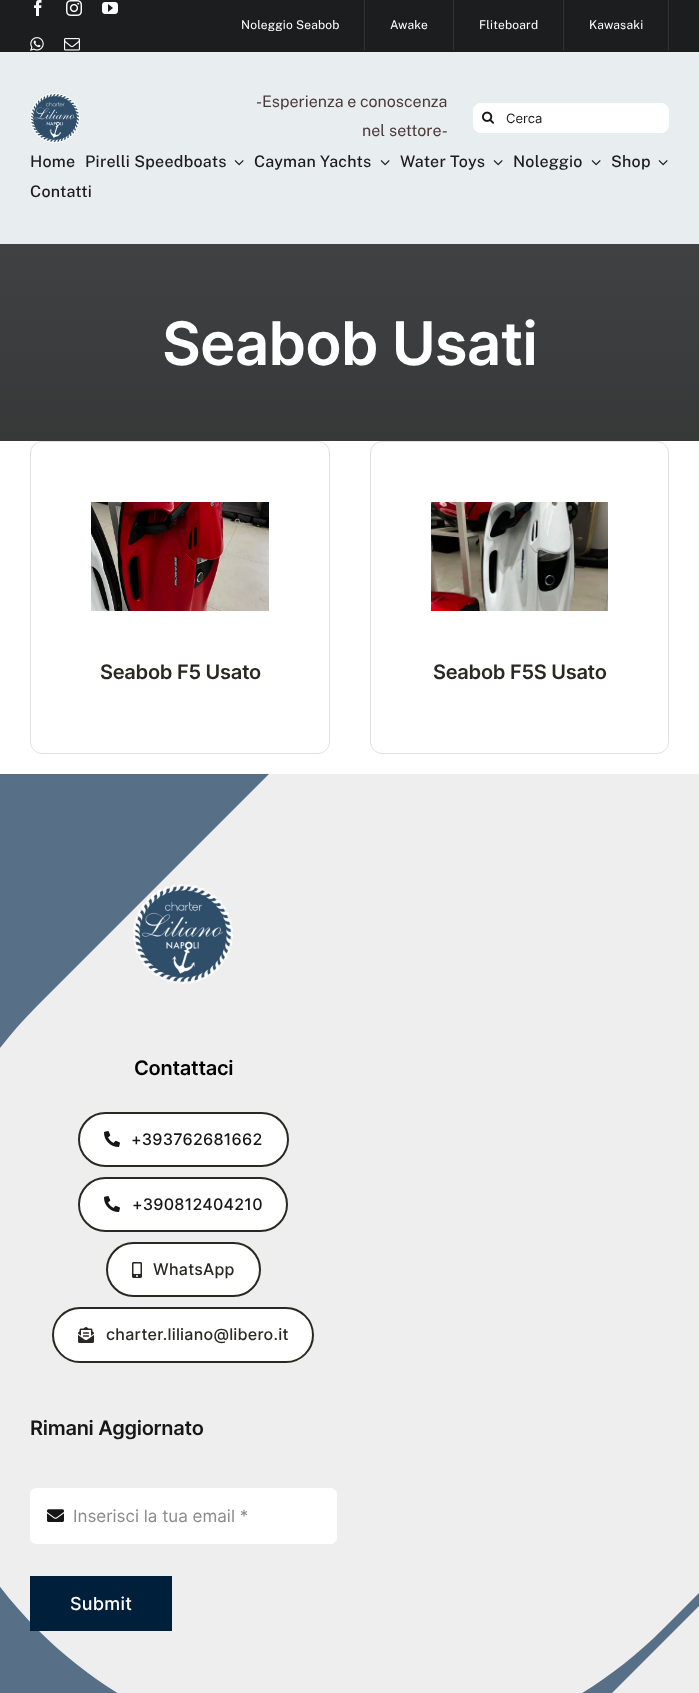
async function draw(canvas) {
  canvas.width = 699;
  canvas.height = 1693;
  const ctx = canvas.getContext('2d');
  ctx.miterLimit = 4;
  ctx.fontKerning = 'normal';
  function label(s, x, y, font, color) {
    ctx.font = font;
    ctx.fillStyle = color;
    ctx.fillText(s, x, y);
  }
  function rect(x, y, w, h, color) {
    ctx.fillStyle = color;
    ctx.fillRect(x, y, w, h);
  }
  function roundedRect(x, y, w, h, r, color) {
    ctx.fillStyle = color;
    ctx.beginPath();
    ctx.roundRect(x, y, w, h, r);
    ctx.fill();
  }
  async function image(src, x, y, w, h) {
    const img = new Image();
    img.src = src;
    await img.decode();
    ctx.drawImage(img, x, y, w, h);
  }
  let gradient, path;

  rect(0, 0, 699, 1693, '#fff');
  rect(0, 0, 699, 52, '#1b1d1e');
  rect(0, 52, 699, 1, '#eee');
  await image('assets/img1.png', 34, 0, 8, 16);
  await image('assets/img2.png', 66, 0, 16, 16);
  await image('assets/img3.png', 102, 2, 16, 12);
  await image('assets/img4.png', 30, 37, 14, 14);
  await image('assets/img5.png', 64, 38, 16, 13);
  ctx.letterSpacing = '0.2px';
  label('Noleggio Seabob', 241, 29, '12px Public Sans', '#fff');
  rect(364, 0, 1, 50, '#323334');
  label('Awake', 390, 29, '12px Public Sans', '#fff');
  rect(453, 0, 1, 50, '#323334');
  label('Fliteboard', 479, 29, '12px Public Sans', '#fff');
  rect(563, 0, 1, 50, '#323334');
  label('Kawasaki', 589, 29, '12px Public Sans', '#fff');
  rect(668, 0, 1, 50, '#323334');
  rect(0, 53, 699, 191, '#e8edf0');
  await image('assets/img6.png', 30, 93, 50, 50);
  ctx.letterSpacing = '0px';
  label('-Esperienza e conoscenza', 256, 107, '16px Public Sans', '#4c3a37');
  label('nel settore-', 362, 136, '16px Public Sans', '#4c3a37');
  roundedRect(473, 103, 196, 30, 8, '#fff');
  await image('assets/img7.png', 482, 111, 12, 13);
  label('Cerca', 506, 123, '13px Inter', '#161616');
  ctx.letterSpacing = '0.25px';
  label('Home', 30, 167, '500 16px Public Sans', '#1b1d1e');
  label('Pirelli Speedboats', 85, 167, '500 16px Public Sans', '#1b1d1e');
  await image('assets/img8.png', 234, 160, 10, 6);
  label('Cayman Yachts', 254, 167, '500 16px Public Sans', '#1b1d1e');
  await image('assets/img8.png', 380, 160, 10, 6);
  label('Water Toys', 400, 167, '500 16px Public Sans', '#1b1d1e');
  await image('assets/img8.png', 493, 160, 10, 6);
  label('Noleggio', 513, 167, '500 16px Public Sans', '#1b1d1e');
  await image('assets/img8.png', 591, 160, 10, 6);
  label('Shop', 611, 167, '500 16px Public Sans', '#1b1d1e');
  await image('assets/img8.png', 658, 160, 10, 6);
  label('Contatti', 30, 197, '500 16px Public Sans', '#1b1d1e');
  gradient = ctx.createLinearGradient(350, 244, 350, 441);
  gradient.addColorStop(0, '#3f4143');
  gradient.addColorStop(1, '#373838');
  ctx.fillStyle = gradient;
  ctx.fillRect(0, 244, 699, 197);
  ctx.letterSpacing = '-0.9px';
  label('Seabob Usati', 162, 365, '600 60px Inter', '#fff');
  ctx.beginPath();
  ctx.roundRect(30.5, 441.5, 299, 312, 11.5);
  ctx.strokeStyle = '#e0e0e0';
  ctx.stroke();
  await image('assets/img9.png', 91, 502, 178, 109);
  ctx.letterSpacing = '-0.25px';
  label('Seabob F5 Usato', 100, 679, '600 20px Inter', '#292823');
  ctx.beginPath();
  ctx.roundRect(370.5, 441.5, 298, 312, 11.5);
  ctx.stroke();
  await image('assets/img10.png', 431, 502, 177, 109);
  label('Seabob F5S Usato', 433, 679, '600 20px Inter', '#292823');
  rect(0, 774, 699, 919, '#eee');
  ctx.fillStyle = '#577088';
  path = new Path2D('M269 774H-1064V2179H126L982 1323C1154 1151 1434 1150 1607 1323C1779 1495 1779 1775 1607 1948L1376 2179H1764V774H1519L663 1629C490 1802 210 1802 38 1630C-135 1457-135 1177 38 1005Z');
  ctx.fill(path, 'evenodd');
  await image('assets/img11.png', 133, 884, 100, 100);
  label('Contattaci', 134, 1075, '600 20px Inter', '#000');
  ctx.fillStyle = '#fff';
  ctx.beginPath();
  ctx.roundRect(79, 1113, 209, 53, 26.5);
  ctx.fill();
  ctx.strokeStyle = '#292823';
  ctx.lineWidth = 2;
  ctx.stroke();
  await image('assets/img12.png', 104, 1131, 16, 16);
  ctx.letterSpacing = '0.25px';
  label('+393762681662', 131, 1145, '500 16px Inter', '#161616');
  ctx.fillStyle = '#fff';
  ctx.beginPath();
  ctx.roundRect(79, 1178, 208, 53, 26.5);
  ctx.fill();
  ctx.stroke();
  await image('assets/img12.png', 104, 1196, 16, 16);
  label('+390812404210', 132, 1210, '500 16px Inter', '#161616');
  ctx.fillStyle = '#fff';
  ctx.beginPath();
  ctx.roundRect(107, 1243, 153, 53, 26.5);
  ctx.fill();
  ctx.stroke();
  await image('assets/img13.png', 132, 1262, 10, 16);
  label('WhatsApp', 153, 1275, '500 16px Inter', '#292823');
  ctx.fillStyle = '#fff';
  ctx.beginPath();
  ctx.roundRect(53, 1308, 260, 54, 27);
  ctx.fill();
  ctx.stroke();
  await image('assets/img14.png', 78, 1327, 16, 16);
  label('charter.liliano@libero.it', 106, 1340, '500 16px Inter', '#292823');
  ctx.letterSpacing = '-0.25px';
  label('Rimani Aggiornato', 30, 1435, '600 20px Inter', '#161616');
  ctx.fillStyle = '#fff';
  ctx.beginPath();
  ctx.roundRect(30.5, 1488.5, 306, 55, 5.5);
  ctx.fill();
  ctx.strokeStyle = '#fff';
  ctx.lineWidth = 1;
  ctx.stroke();
  await image('assets/img15.png', 47, 1509, 17, 13);
  ctx.letterSpacing = '0px';
  label('Inserisci la tua email *', 73, 1522, '17px Inter', '#8b8b8b');
  rect(30, 1576, 142, 55, '#001f3b');
  ctx.letterSpacing = '0.25px';
  label('Submit', 70, 1610, '500 18px Inter', '#fff');
}

draw(document.querySelector('canvas'));
